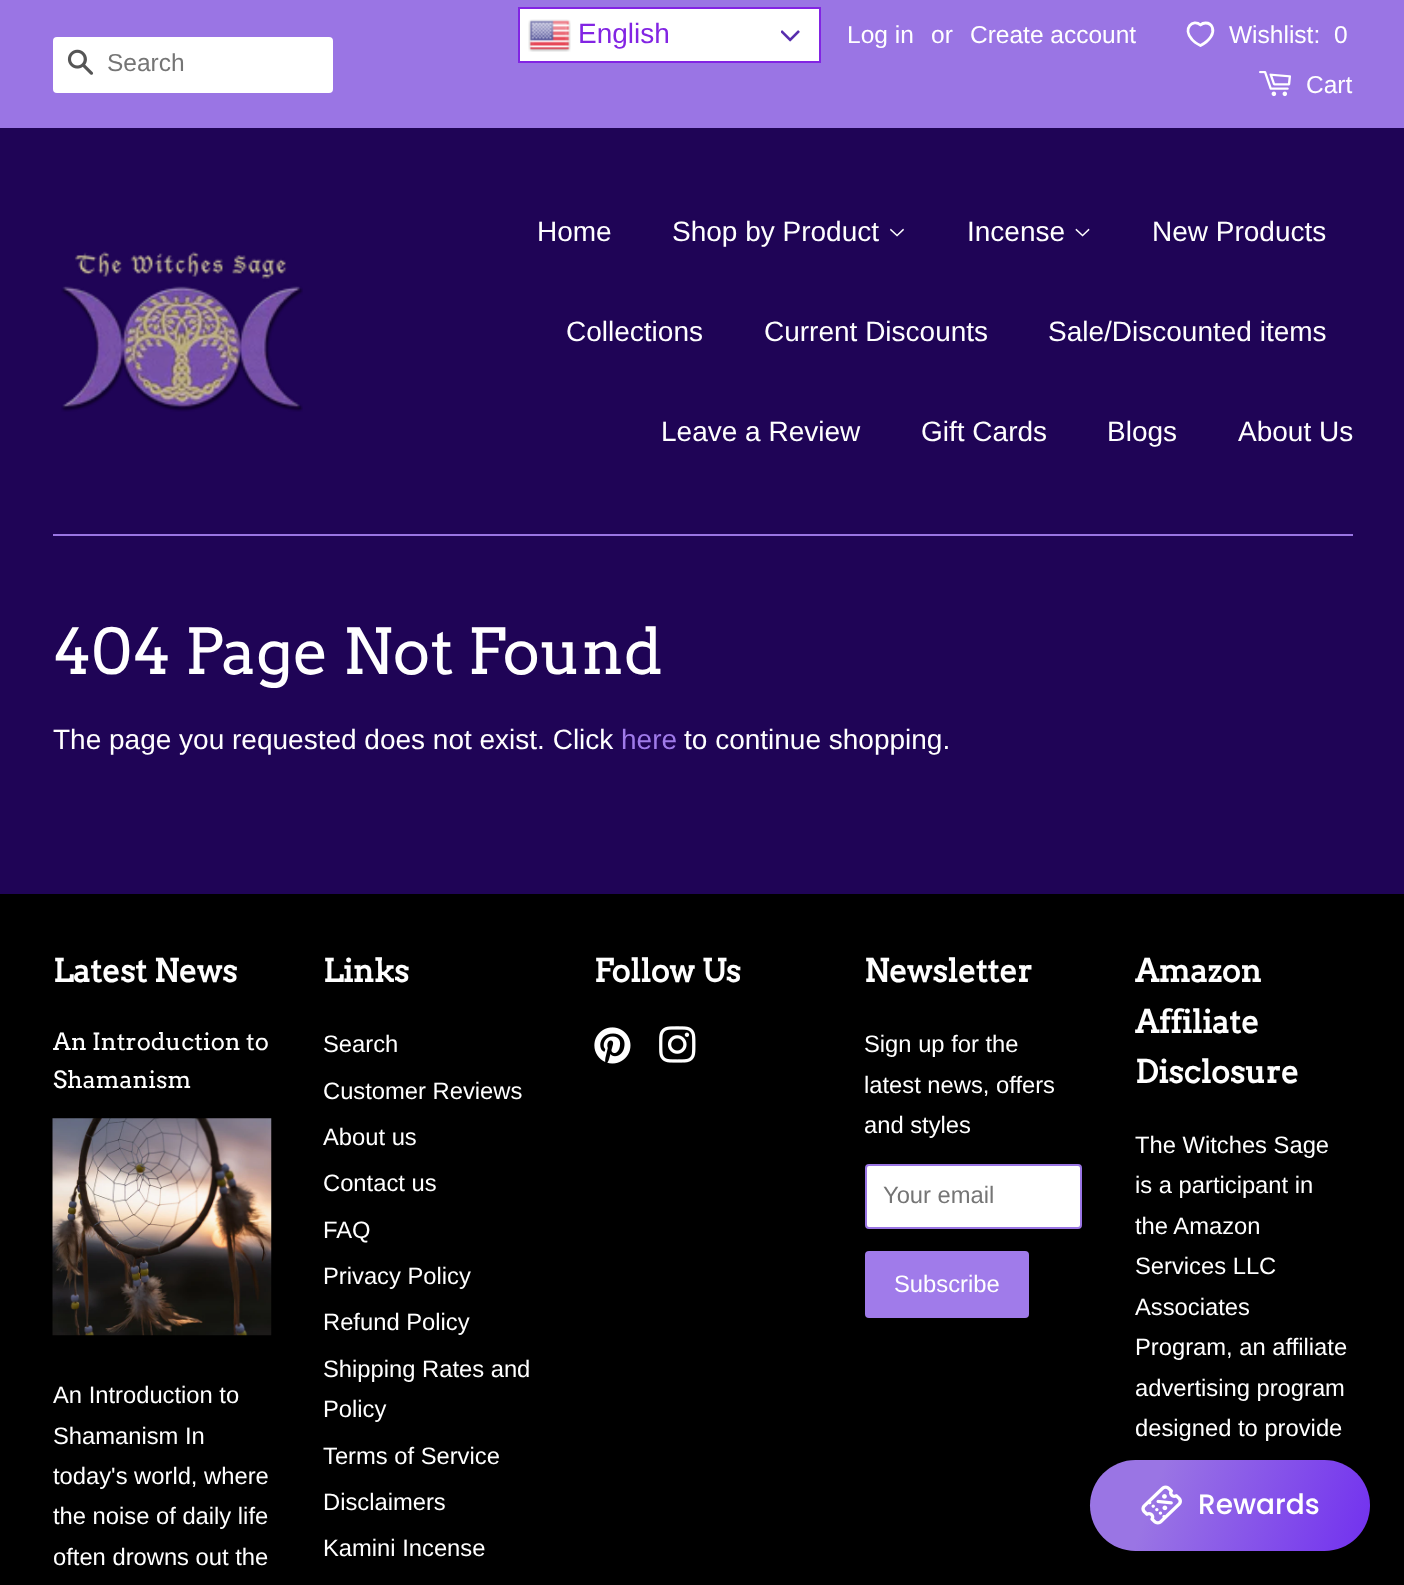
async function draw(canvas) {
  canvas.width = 1404;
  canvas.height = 1585;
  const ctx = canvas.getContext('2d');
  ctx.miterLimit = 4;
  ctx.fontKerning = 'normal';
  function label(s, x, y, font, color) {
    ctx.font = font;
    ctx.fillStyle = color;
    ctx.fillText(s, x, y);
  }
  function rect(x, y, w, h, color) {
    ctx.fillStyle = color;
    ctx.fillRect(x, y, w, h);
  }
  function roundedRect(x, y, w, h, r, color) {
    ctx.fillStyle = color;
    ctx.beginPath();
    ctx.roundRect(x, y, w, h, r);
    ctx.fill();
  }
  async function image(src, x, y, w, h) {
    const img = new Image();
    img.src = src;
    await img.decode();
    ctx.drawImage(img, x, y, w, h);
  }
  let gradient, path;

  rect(0, 0, 1404, 1585, '#1f0456');
  rect(0, 0, 1404, 128, '#9a75e4');
  roundedRect(53, 37, 280, 56, 4, '#fff');
  await image('assets/img1.png', 67, 49, 27, 26);
  label('Search', 107, 71, '24.5px Liberation Sans', '#757575');
  ctx.fillStyle = '#fff';
  ctx.beginPath();
  ctx.rect(519, 8, 301, 54);
  ctx.fill();
  ctx.strokeStyle = '#8224e3';
  ctx.lineWidth = 2;
  ctx.stroke();
  await image('assets/img2.png', 528, 19, 43, 33);
  label('English', 578, 43, '28px Liberation Sans', '#8224e3');
  await image('assets/img3.png', 781, 30, 19, 12);
  label('Log in', 847, 43, '24.5px Liberation Sans', '#fff');
  label('or', 931, 43, '24.5px Liberation Sans', '#fff');
  label('Create account', 970, 43, '24.5px Liberation Sans', '#fff');
  path = new Path2D('M1205.5 23C1203.5 23 1202 23.5 1200.5 25C1193 18.5 1182 28.5 1192 39.5C1194 42 1197.5 44 1200.5 45.5C1204.5 43.5 1208.5 40.5 1211 36.5C1214.5 31 1213 23 1205.5 23Z');
  ctx.strokeStyle = '#fff';
  ctx.lineWidth = 2.8;
  ctx.lineCap = 'round';
  ctx.lineJoin = 'round';
  ctx.stroke(path);
  label('Wishlist:', 1229, 43, '24.5px Liberation Sans', '#fff');
  label('0', 1334, 43, '24.5px Liberation Sans', '#fff');
  await image('assets/img4.png', 1259, 71, 32, 26);
  label('Cart', 1306, 93, '24.5px Liberation Sans', '#fff');
  rect(53, 534, 1300, 2, '#9a75e4');
  await image('assets/img5.png', 61, 251, 242, 161);
  label('Home', 537, 241, '28px Liberation Sans', '#fff');
  label('Shop by Product', 672, 241, '28px Liberation Sans', '#fff');
  await image('assets/img6.png', 890, 228, 14, 9);
  label('Incense', 967, 241, '28px Liberation Sans', '#fff');
  await image('assets/img7.png', 1075, 228, 15, 9);
  label('New Products', 1152, 241, '28px Liberation Sans', '#fff');
  label('Collections', 566, 341, '28px Liberation Sans', '#fff');
  label('Current Discounts', 764, 341, '28px Liberation Sans', '#fff');
  label('Sale/Discounted items', 1048, 341, '28px Liberation Sans', '#fff');
  label('Leave a Review', 661, 441, '28px Liberation Sans', '#fff');
  label('Gift Cards', 921, 441, '28px Liberation Sans', '#fff');
  label('Blogs', 1107, 441, '28px Liberation Sans', '#fff');
  label('About Us', 1238, 441, '28px Liberation Sans', '#fff');
  label('404 Page Not Found', 53, 674, '63px Arvo', '#fff');
  label('The page you requested does not exist. Click', 53, 749, '28px Liberation Sans', '#fff');
  label('here', 621, 749, '28px Liberation Sans', '#a07bea');
  label('to continue shopping.', 684, 749, '28px Liberation Sans', '#fff');
  rect(0, 894, 1404, 691, '#000');
  label('Latest News', 53, 982, 'bold 31.5px Arvo', '#fff');
  label('An Introduction to', 53, 1050, '23.75px Arvo', '#fff');
  label('Shamanism', 53, 1088, '23.75px Arvo', '#fff');
  await image('assets/img8.png', 52, 1118, 220, 218);
  label('An Introduction to', 53, 1403, '23.75px Liberation Sans', '#fff');
  label('Shamanism In', 53, 1444, '23.75px Liberation Sans', '#fff');
  label('today\'s world, where', 53, 1484, '23.75px Liberation Sans', '#fff');
  label('the noise of daily life', 53, 1524, '23.75px Liberation Sans', '#fff');
  label('often drowns out the', 53, 1565, '23.75px Liberation Sans', '#fff');
  label('Links', 323, 982, 'bold 31.5px Arvo', '#fff');
  label('Search', 323, 1052, '23.75px Liberation Sans', '#fff');
  label('Customer Reviews', 323, 1099, '23.75px Liberation Sans', '#fff');
  label('About us', 323, 1145, '23.75px Liberation Sans', '#fff');
  label('Contact us', 323, 1191, '23.75px Liberation Sans', '#fff');
  label('FAQ', 323, 1238, '23.75px Liberation Sans', '#fff');
  label('Privacy Policy', 323, 1284, '23.75px Liberation Sans', '#fff');
  label('Refund Policy', 323, 1330, '23.75px Liberation Sans', '#fff');
  label('Shipping Rates and', 323, 1377, '23.75px Liberation Sans', '#fff');
  label('Policy', 323, 1417, '23.75px Liberation Sans', '#fff');
  label('Terms of Service', 323, 1464, '23.75px Liberation Sans', '#fff');
  label('Disclaimers', 323, 1510, '23.75px Liberation Sans', '#fff');
  label('Kamini Incense', 323, 1556, '23.75px Liberation Sans', '#fff');
  label('Follow Us', 594, 982, 'bold 31.5px Arvo', '#fff');
  await image('assets/img9.png', 594, 1027, 37, 37);
  await image('assets/img10.png', 659, 1026, 37, 37);
  label('Newsletter', 864, 982, 'bold 31.5px Arvo', '#fff');
  label('Sign up for the', 864, 1052, '23.75px Liberation Sans', '#fff');
  label('latest news, offers', 864, 1093, '23.75px Liberation Sans', '#fff');
  label('and styles', 864, 1133, '23.75px Liberation Sans', '#fff');
  ctx.beginPath();
  ctx.roundRect(866, 1165, 215, 63, 3);
  ctx.fill();
  ctx.strokeStyle = '#9a75e4';
  ctx.lineWidth = 2;
  ctx.lineJoin = 'miter';
  ctx.stroke();
  label('Your email', 883, 1203, '23.75px Liberation Sans', '#757575');
  roundedRect(865, 1251, 164, 67, 4, '#a07bea');
  label('Subscribe', 894, 1292, '23.75px Liberation Sans', '#fff');
  label('Amazon', 1135, 982, 'bold 31.5px Arvo', '#fff');
  label('Affiliate', 1135, 1033, 'bold 31.5px Arvo', '#fff');
  label('Disclosure', 1135, 1083, 'bold 31.5px Arvo', '#fff');
  label('The Witches Sage', 1135, 1153, '23.75px Liberation Sans', '#fff');
  label('is a participant in', 1135, 1193, '23.75px Liberation Sans', '#fff');
  label('the Amazon', 1135, 1234, '23.75px Liberation Sans', '#fff');
  label('Services LLC', 1135, 1274, '23.75px Liberation Sans', '#fff');
  label('Associates', 1135, 1315, '23.75px Liberation Sans', '#fff');
  label('Program, an affiliate', 1135, 1355, '23.75px Liberation Sans', '#fff');
  label('advertising program', 1135, 1396, '23.75px Liberation Sans', '#fff');
  label('designed to provide', 1135, 1436, '23.75px Liberation Sans', '#fff');
  gradient = ctx.createLinearGradient(1092, 1456, 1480, 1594);
  gradient.addColorStop(0.17, '#9a75e4');
  gradient.addColorStop(1, '#5c0cf5');
  ctx.fillStyle = gradient;
  ctx.beginPath();
  ctx.roundRect(1090, 1460, 280, 91, 45.5);
  ctx.fill();
  await image('assets/img11.png', 1141, 1485, 41, 40);
  label('Rewards', 1198, 1514, '500 28px Poppins', '#fff');
}

draw(document.querySelector('canvas'));
